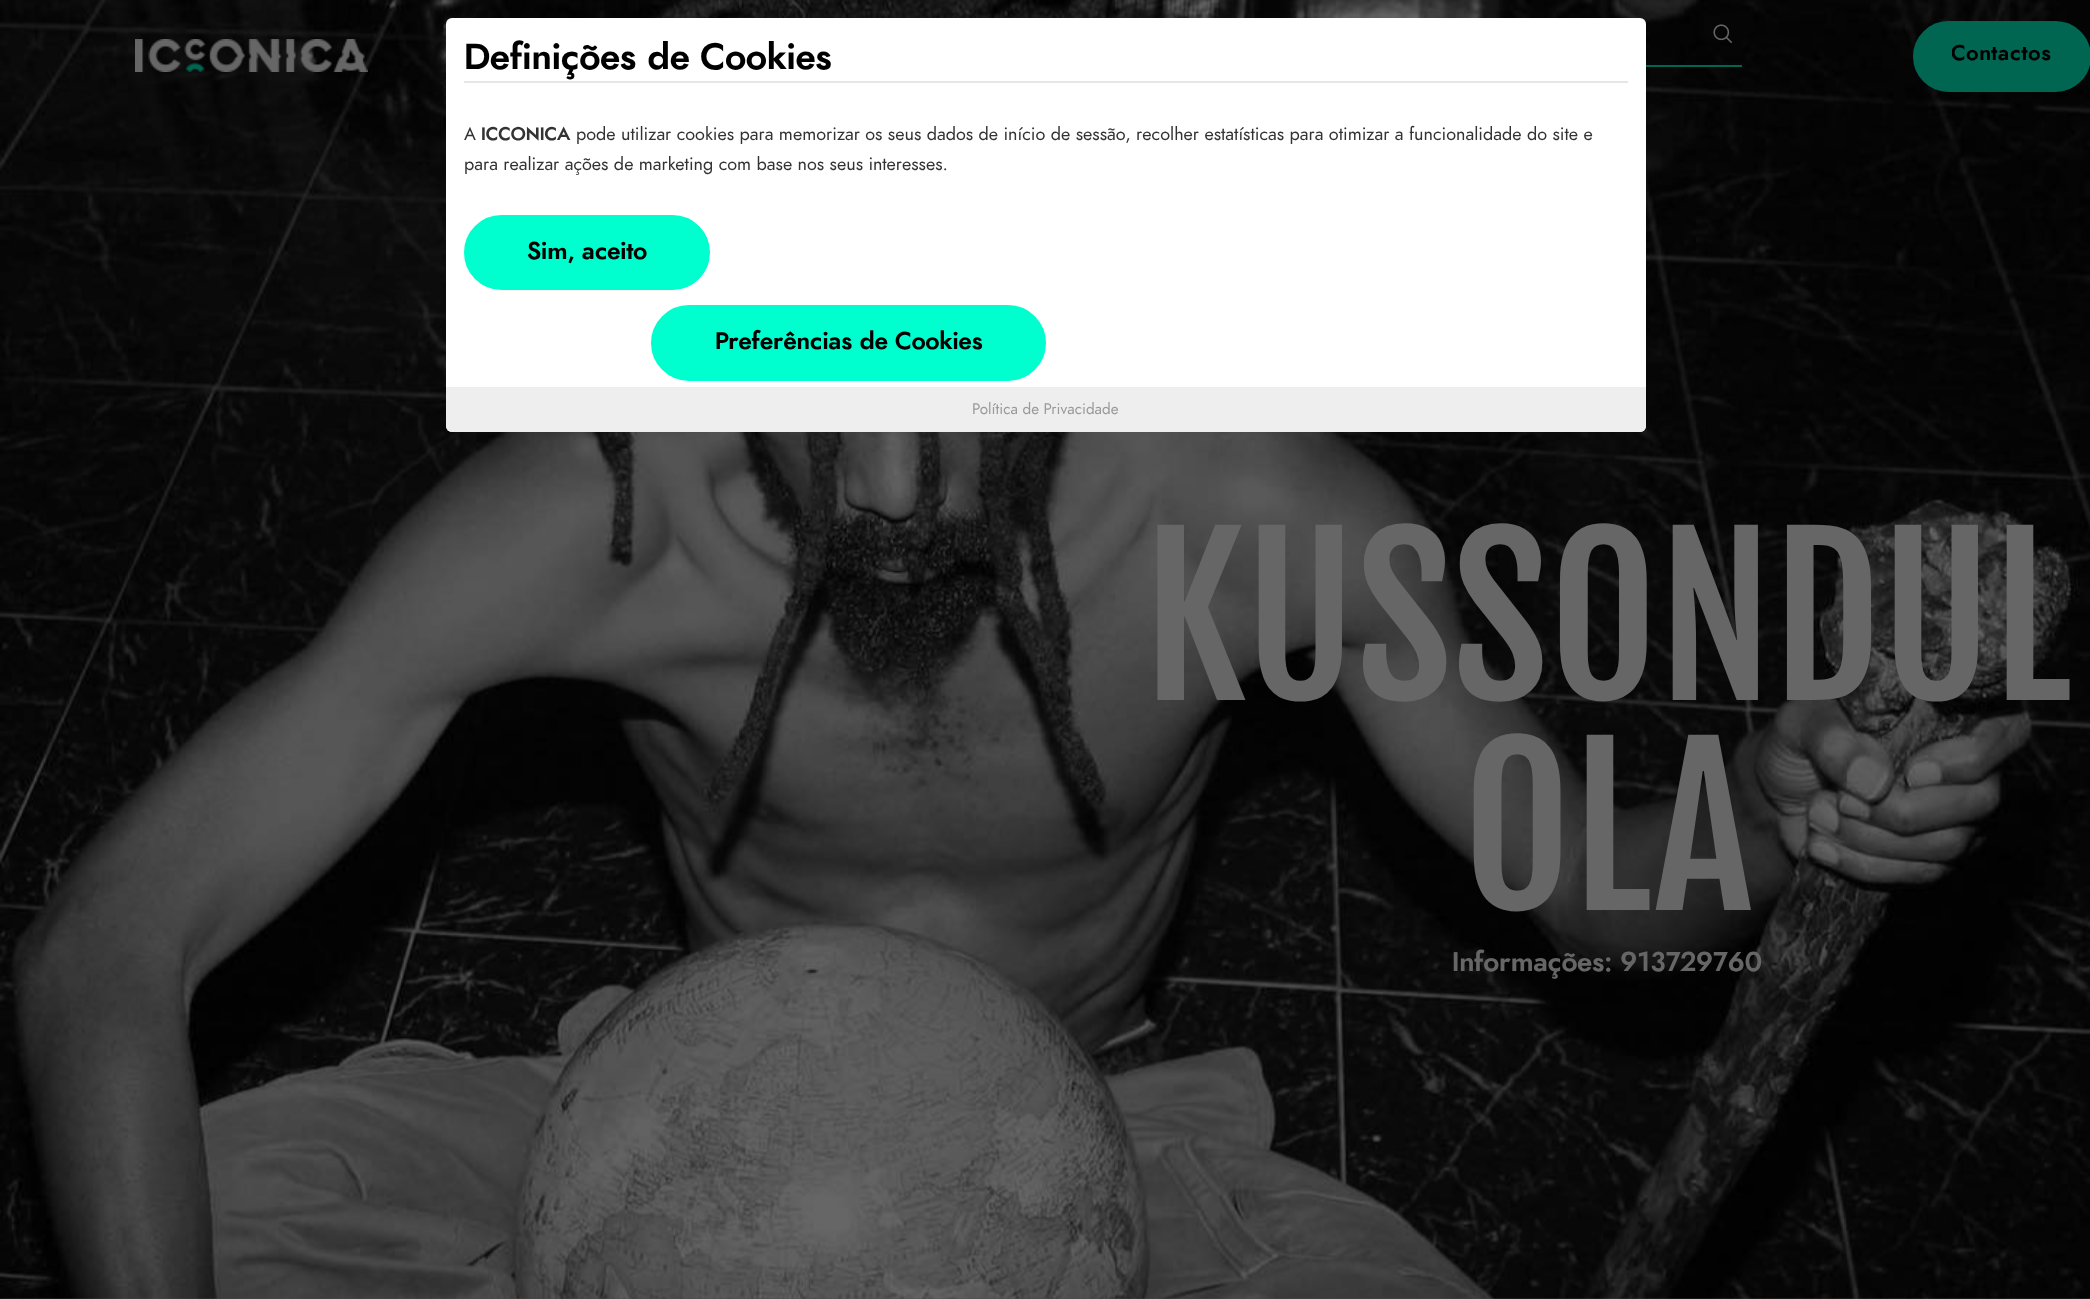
async function draw(canvas) {
  canvas.width = 2090;
  canvas.height = 1299;
  const ctx = canvas.getContext('2d');
  ctx.miterLimit = 4;
  ctx.fontKerning = 'normal';
  function label(s, x, y, font, color) {
    ctx.font = font;
    ctx.fillStyle = color;
    ctx.fillText(s, x, y);
  }
  function rect(x, y, w, h, color) {
    ctx.fillStyle = color;
    ctx.fillRect(x, y, w, h);
  }
  function roundedRect(x, y, w, h, r, color) {
    ctx.fillStyle = color;
    ctx.beginPath();
    ctx.roundRect(x, y, w, h, r);
    ctx.fill();
  }
  async function image(src, x, y, w, h) {
    const img = new Image();
    img.src = src;
    await img.decode();
    ctx.drawImage(img, x, y, w, h);
  }

  rect(0, 0, 2090, 1299, '#fff');
  await image('assets/img4.png', 0, 1298, 2090, 1);
  await image('assets/img3.png', 0, 0, 2090, 1299);
  roundedRect(446, 18, 1200, 414, 6, '#fff');
  rect(464, 81, 1164, 2, '#e6e6e6');
  label('Definições de Cookies', 464, 69, 'bold 36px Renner', '#000');
  label('A', 464, 140, '18px Renner', '#333');
  label('ICCONICA', 481, 140, 'bold 18px Renner', '#333');
  label('pode utilizar cookies para memorizar os seus dados de início de sessão, recolher estatísticas para otimizar a funcionalidade do site e', 576, 140, '18px Renner', '#333');
  label('para realizar ações de marketing com base nos seus interesses.', 464, 170, '18px Renner', '#333');
  ctx.fillStyle = '#00ffce';
  ctx.beginPath();
  ctx.roundRect(465.5, 216.5, 243, 72, 36);
  ctx.fill();
  ctx.strokeStyle = '#00ffce';
  ctx.lineWidth = 3;
  ctx.stroke();
  label('Sim, aceito', 527, 259, 'bold 24px Renner', '#000');
  ctx.fillStyle = '#00ffce';
  ctx.beginPath();
  ctx.roundRect(652.5, 306.5, 392, 73, 36.5);
  ctx.fill();
  ctx.stroke();
  label('Preferências de Cookies', 715, 349, 'bold 24px Renner', '#000');
  ctx.fillStyle = '#eee';
  ctx.beginPath();
  ctx.roundRect(446, 387, 1200, 45, [0, 0, 6, 6]);
  ctx.fill();
  label('Política de Privacidade', 972, 414, '15.25px Renner', '#9a9a9a');
  await image('assets/img1.png', 135, 39, 233, 33);
  await image('assets/img2.png', 1713, 24, 19, 19);
  rect(1646, 65, 96, 2, '#006652');
  ctx.beginPath();
  ctx.roundRect(1914.5, 22.5, 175, 68, 34);
  ctx.fill();
  ctx.strokeStyle = '#006652';
  ctx.stroke();
  ctx.save();
  ctx.beginPath();
  ctx.rect(1952, 39, 100, 35);
  ctx.clip();
  ctx.letterSpacing = '0.75px';
  label('Contactos', 1951, 60, 'bold 21px Renner', '#000');
  ctx.restore();
  label('KUSSONDUL', 1143, 700, '210px Fjalla One', '#666');
  label('OLA', 1462, 910, '210px Fjalla One', '#666');
  label('Informações: 913729760', 1452, 971, 'bold 27px Renner', '#666');
}

draw(document.querySelector('canvas'));
